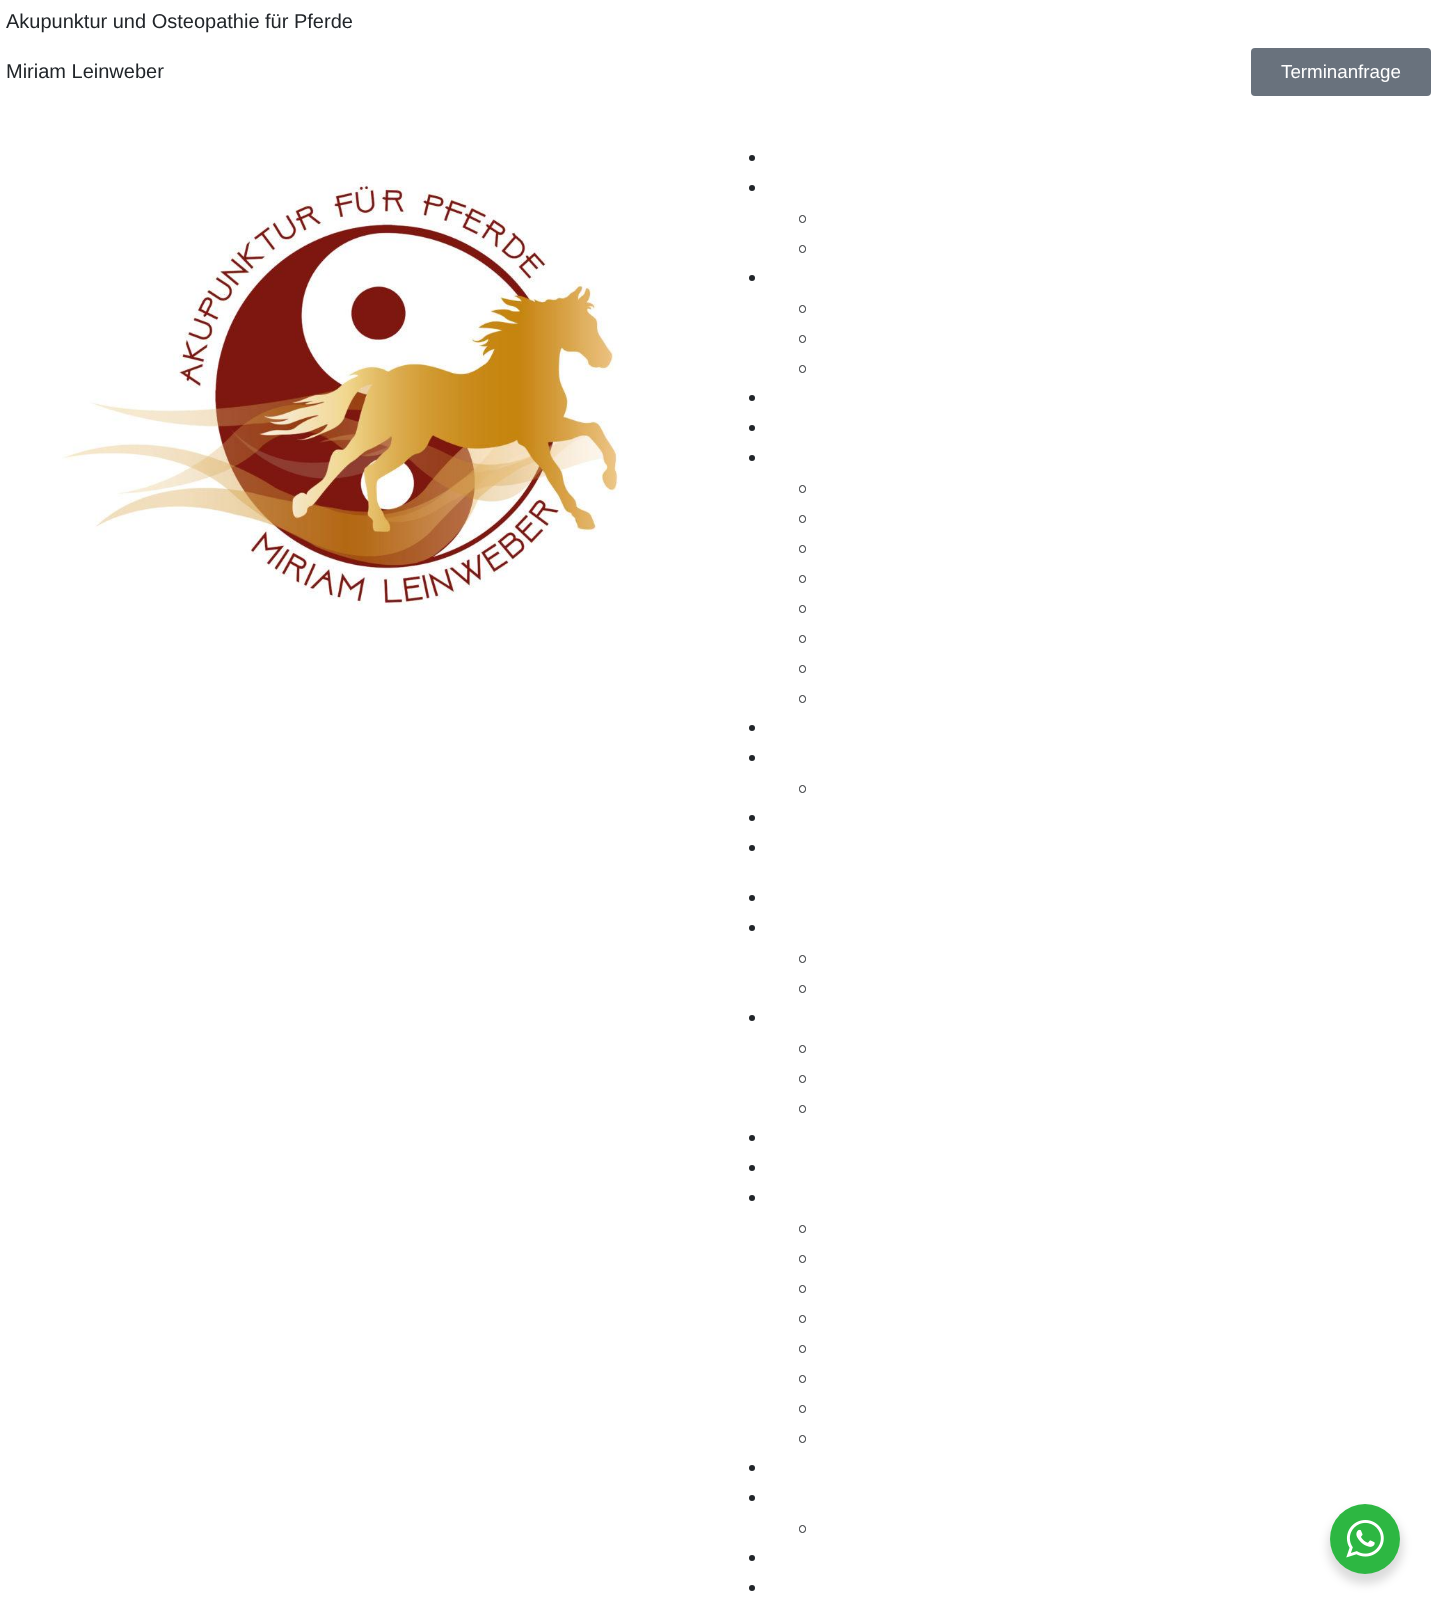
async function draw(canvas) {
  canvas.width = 1437;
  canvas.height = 1611;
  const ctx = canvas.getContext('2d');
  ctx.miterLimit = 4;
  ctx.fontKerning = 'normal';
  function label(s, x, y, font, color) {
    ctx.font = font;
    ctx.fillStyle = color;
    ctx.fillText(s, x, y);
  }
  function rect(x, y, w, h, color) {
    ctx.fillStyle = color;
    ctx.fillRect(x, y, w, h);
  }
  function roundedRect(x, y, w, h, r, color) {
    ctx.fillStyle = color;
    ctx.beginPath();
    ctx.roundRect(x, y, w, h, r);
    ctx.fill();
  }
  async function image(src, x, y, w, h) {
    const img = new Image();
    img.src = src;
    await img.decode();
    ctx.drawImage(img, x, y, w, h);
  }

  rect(0, 0, 1437, 1611, '#fff');
  label('Akupunktur und Osteopathie für Pferde', 6, 28, '20px Liberation Sans', '#212529');
  label('Miriam Leinweber', 6, 78, '20px Liberation Sans', '#212529');
  roundedRect(1251, 48, 180, 48, 4, '#69727d');
  label('Terminanfrage', 1281, 78, '18.75px Liberation Sans', '#fff');
  await image('assets/img1.png', 62, 182, 557, 428);
  ctx.fillStyle = '#212529';
  ctx.beginPath();
  ctx.arc(752, 158, 3, 0, 2 * Math.PI);
  ctx.fill();
  ctx.beginPath();
  ctx.arc(752, 188, 3, 0, 2 * Math.PI);
  ctx.fill();
  ctx.beginPath();
  ctx.roundRect(799.5, 215.5, 6, 7, 3);
  ctx.strokeStyle = '#212529';
  ctx.stroke();
  ctx.beginPath();
  ctx.roundRect(799.5, 245.5, 6, 7, 3);
  ctx.stroke();
  ctx.beginPath();
  ctx.arc(752, 278, 3, 0, 2 * Math.PI);
  ctx.fill();
  ctx.beginPath();
  ctx.roundRect(799.5, 305.5, 6, 7, 3);
  ctx.stroke();
  ctx.beginPath();
  ctx.roundRect(799.5, 335.5, 6, 7, 3);
  ctx.stroke();
  ctx.beginPath();
  ctx.roundRect(799.5, 365.5, 6, 7, 3);
  ctx.stroke();
  ctx.beginPath();
  ctx.arc(752, 398, 3, 0, 2 * Math.PI);
  ctx.fill();
  ctx.beginPath();
  ctx.arc(752, 428, 3, 0, 2 * Math.PI);
  ctx.fill();
  ctx.beginPath();
  ctx.arc(752, 458, 3, 0, 2 * Math.PI);
  ctx.fill();
  ctx.beginPath();
  ctx.roundRect(799.5, 485.5, 6, 7, 3);
  ctx.stroke();
  ctx.beginPath();
  ctx.roundRect(799.5, 515.5, 6, 7, 3);
  ctx.stroke();
  ctx.beginPath();
  ctx.roundRect(799.5, 545.5, 6, 7, 3);
  ctx.stroke();
  ctx.beginPath();
  ctx.roundRect(799.5, 575.5, 6, 7, 3);
  ctx.stroke();
  ctx.beginPath();
  ctx.roundRect(799.5, 605.5, 6, 7, 3);
  ctx.stroke();
  ctx.beginPath();
  ctx.roundRect(799.5, 635.5, 6, 7, 3);
  ctx.stroke();
  ctx.beginPath();
  ctx.roundRect(799.5, 665.5, 6, 7, 3);
  ctx.stroke();
  ctx.beginPath();
  ctx.roundRect(799.5, 695.5, 6, 7, 3);
  ctx.stroke();
  ctx.beginPath();
  ctx.arc(752, 728, 3, 0, 2 * Math.PI);
  ctx.fill();
  ctx.beginPath();
  ctx.arc(752, 758, 3, 0, 2 * Math.PI);
  ctx.fill();
  ctx.beginPath();
  ctx.roundRect(799.5, 785.5, 6, 7, 3);
  ctx.stroke();
  ctx.beginPath();
  ctx.arc(752, 818, 3, 0, 2 * Math.PI);
  ctx.fill();
  ctx.beginPath();
  ctx.arc(752, 848, 3, 0, 2 * Math.PI);
  ctx.fill();
  ctx.beginPath();
  ctx.arc(752, 898, 3, 0, 2 * Math.PI);
  ctx.fill();
  ctx.beginPath();
  ctx.arc(752, 928, 3, 0, 2 * Math.PI);
  ctx.fill();
  ctx.beginPath();
  ctx.roundRect(799.5, 955.5, 6, 7, 3);
  ctx.stroke();
  ctx.beginPath();
  ctx.roundRect(799.5, 985.5, 6, 7, 3);
  ctx.stroke();
  ctx.beginPath();
  ctx.arc(752, 1018, 3, 0, 2 * Math.PI);
  ctx.fill();
  ctx.beginPath();
  ctx.roundRect(799.5, 1045.5, 6, 7, 3);
  ctx.stroke();
  ctx.beginPath();
  ctx.roundRect(799.5, 1075.5, 6, 7, 3);
  ctx.stroke();
  ctx.beginPath();
  ctx.roundRect(799.5, 1105.5, 6, 7, 3);
  ctx.stroke();
  ctx.beginPath();
  ctx.arc(752, 1138, 3, 0, 2 * Math.PI);
  ctx.fill();
  ctx.beginPath();
  ctx.arc(752, 1168, 3, 0, 2 * Math.PI);
  ctx.fill();
  ctx.beginPath();
  ctx.arc(752, 1198, 3, 0, 2 * Math.PI);
  ctx.fill();
  ctx.beginPath();
  ctx.roundRect(799.5, 1225.5, 6, 7, 3);
  ctx.stroke();
  ctx.beginPath();
  ctx.roundRect(799.5, 1255.5, 6, 7, 3);
  ctx.stroke();
  ctx.beginPath();
  ctx.roundRect(799.5, 1285.5, 6, 7, 3);
  ctx.stroke();
  ctx.beginPath();
  ctx.roundRect(799.5, 1315.5, 6, 7, 3);
  ctx.stroke();
  ctx.beginPath();
  ctx.roundRect(799.5, 1345.5, 6, 7, 3);
  ctx.stroke();
  ctx.beginPath();
  ctx.roundRect(799.5, 1375.5, 6, 7, 3);
  ctx.stroke();
  ctx.beginPath();
  ctx.roundRect(799.5, 1405.5, 6, 7, 3);
  ctx.stroke();
  ctx.beginPath();
  ctx.roundRect(799.5, 1435.5, 6, 7, 3);
  ctx.stroke();
  ctx.beginPath();
  ctx.arc(752, 1468, 3, 0, 2 * Math.PI);
  ctx.fill();
  ctx.beginPath();
  ctx.arc(752, 1498, 3, 0, 2 * Math.PI);
  ctx.fill();
  ctx.beginPath();
  ctx.roundRect(799.5, 1525.5, 6, 7, 3);
  ctx.stroke();
  ctx.beginPath();
  ctx.arc(752, 1558, 3, 0, 2 * Math.PI);
  ctx.fill();
  ctx.beginPath();
  ctx.arc(752, 1588, 3, 0, 2 * Math.PI);
  ctx.fill();
  ctx.fillStyle = '#00000024';
  ctx.filter = 'blur(5px)';
  ctx.beginPath();
  ctx.roundRect(1328, 1509, 75, 75, 37.5);
  ctx.fill();
  ctx.filter = 'none';
  ctx.fillStyle = '#2db742';
  ctx.beginPath();
  ctx.arc(1365, 1539, 35, 0, 2 * Math.PI);
  ctx.fill();
  await image('assets/img2.png', 1346, 1520, 38, 38);
}

draw(document.querySelector('canvas'));
